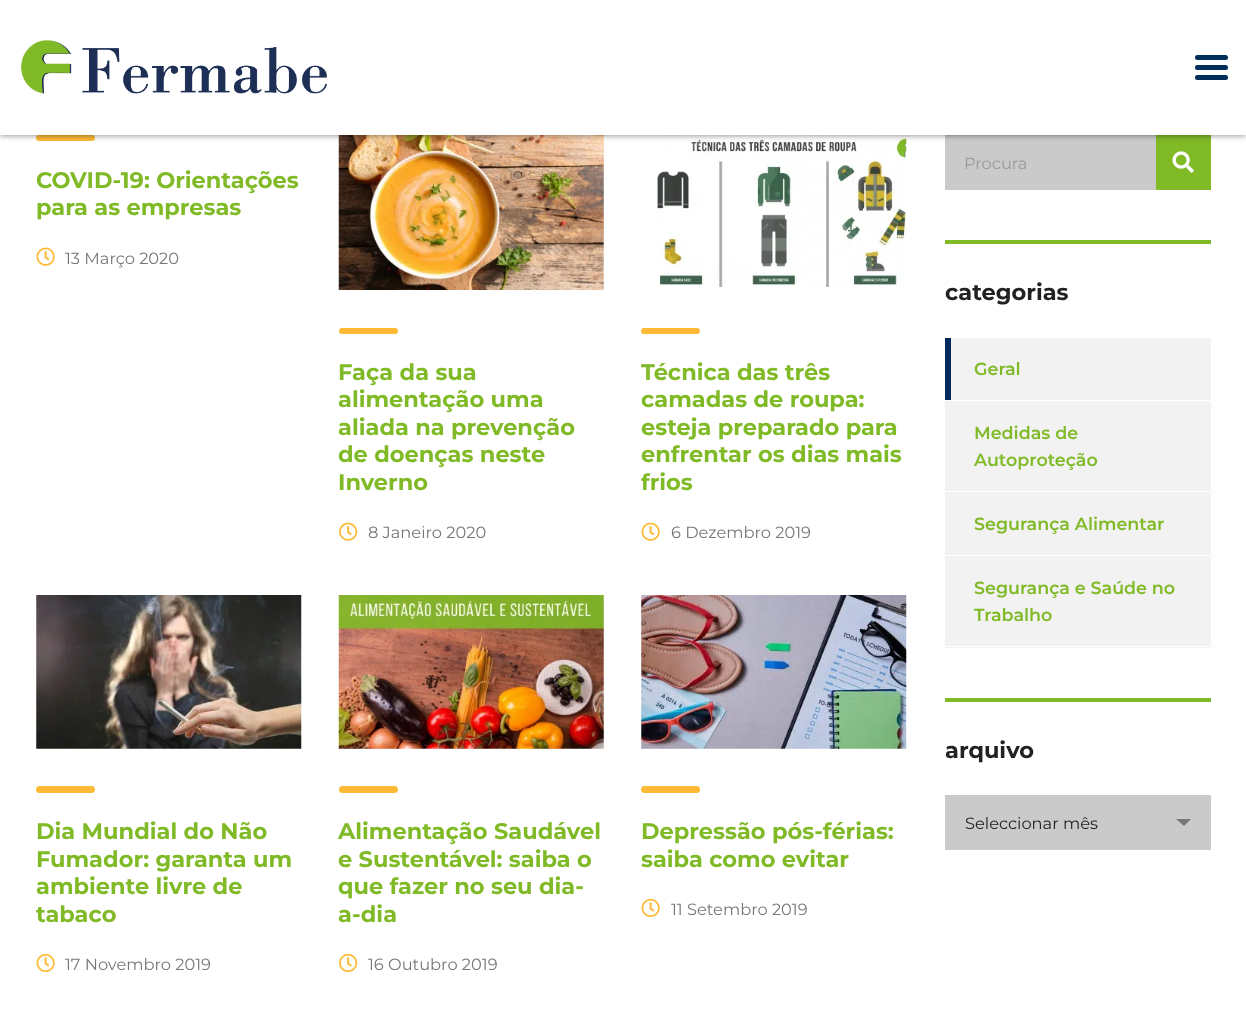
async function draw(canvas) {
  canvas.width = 1246;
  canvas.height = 1019;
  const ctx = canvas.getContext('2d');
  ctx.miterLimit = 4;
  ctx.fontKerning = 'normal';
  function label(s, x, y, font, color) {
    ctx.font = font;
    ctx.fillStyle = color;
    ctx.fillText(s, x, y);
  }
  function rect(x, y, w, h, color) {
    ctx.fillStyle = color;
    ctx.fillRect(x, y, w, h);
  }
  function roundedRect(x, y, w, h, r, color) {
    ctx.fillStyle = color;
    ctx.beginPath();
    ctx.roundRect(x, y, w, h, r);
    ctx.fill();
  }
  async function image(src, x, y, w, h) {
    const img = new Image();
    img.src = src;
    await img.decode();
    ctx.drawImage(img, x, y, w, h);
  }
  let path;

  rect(0, 0, 1246, 1019, '#fff');
  roundedRect(36, 135, 59, 6, 3, '#fcba37');
  await image('assets/img3.png', 338, 135, 266, 155);
  await image('assets/img5.png', 657, 135, 250, 152);
  rect(945, 135, 211, 55, '#cacaca');
  rect(1156, 135, 55, 55, '#80ba27');
  ctx.fillStyle = '#00000085';
  ctx.filter = 'blur(3px)';
  ctx.beginPath();
  ctx.rect(0, 0, 1246, 135);
  ctx.fill();
  ctx.filter = 'none';
  rect(0, 0, 1246, 135, '#fff');
  await image('assets/img1.png', 21, 40, 306, 54);
  roundedRect(1195, 65, 33, 5, 2.5, '#002e5b');
  roundedRect(1195, 55, 33, 5, 2.5, '#002e5b');
  roundedRect(1195, 75, 33, 5, 2.5, '#002e5b');
  label('COVID-19: Orientações', 36, 188, 'bold 22.5px Montserrat', '#80ba27');
  label('para as empresas', 36, 215, 'bold 22.5px Montserrat', '#80ba27');
  await image('assets/img2.png', 36, 247, 19, 19);
  label('13 Março 2020', 65, 264, '16.25px Montserrat', '#777');
  roundedRect(339, 328, 59, 6, 3, '#fcba37');
  label('Faça da sua', 338, 380, 'bold 22.5px Montserrat', '#80ba27');
  label('alimentação uma', 338, 407, 'bold 22.5px Montserrat', '#80ba27');
  label('aliada na prevenção', 338, 435, 'bold 22.5px Montserrat', '#80ba27');
  label('de doenças neste', 338, 462, 'bold 22.5px Montserrat', '#80ba27');
  label('Inverno', 338, 490, 'bold 22.5px Montserrat', '#80ba27');
  await image('assets/img4.png', 339, 522, 19, 19);
  label('8 Janeiro 2020', 368, 538, '16.25px Montserrat', '#777');
  roundedRect(641, 328, 59, 6, 3, '#fcba37');
  label('Técnica das três', 641, 380, 'bold 22.5px Montserrat', '#80ba27');
  label('camadas de roupa:', 641, 407, 'bold 22.5px Montserrat', '#80ba27');
  label('esteja preparado para', 641, 435, 'bold 22.5px Montserrat', '#80ba27');
  label('enfrentar os dias mais', 641, 462, 'bold 22.5px Montserrat', '#80ba27');
  label('frios', 641, 490, 'bold 22.5px Montserrat', '#80ba27');
  await image('assets/img2.png', 641, 522, 19, 19);
  label('6 Dezembro 2019', 671, 538, '16.25px Montserrat', '#777');
  await image('assets/img6.png', 36, 595, 266, 154);
  roundedRect(36, 786, 59, 7, 3.5, '#fcba37');
  label('Dia Mundial do Não', 36, 839, 'bold 22.5px Montserrat', '#80ba27');
  label('Fumador: garanta um', 36, 867, 'bold 22.5px Montserrat', '#80ba27');
  label('ambiente livre de', 36, 894, 'bold 22.5px Montserrat', '#80ba27');
  label('tabaco', 36, 922, 'bold 22.5px Montserrat', '#80ba27');
  await image('assets/img7.png', 36, 953, 19, 20);
  label('17 Novembro 2019', 65, 970, '16.25px Montserrat', '#777');
  await image('assets/img8.png', 338, 595, 266, 154);
  roundedRect(339, 786, 59, 7, 3.5, '#fcba37');
  label('Alimentação Saudável', 338, 839, 'bold 22.5px Montserrat', '#80ba27');
  label('e Sustentável: saiba o', 338, 867, 'bold 22.5px Montserrat', '#80ba27');
  label('que fazer no seu dia-', 338, 894, 'bold 22.5px Montserrat', '#80ba27');
  label('a-dia', 338, 922, 'bold 22.5px Montserrat', '#80ba27');
  await image('assets/img9.png', 339, 953, 19, 19);
  label('16 Outubro 2019', 368, 970, '16.25px Montserrat', '#777');
  await image('assets/img10.png', 641, 595, 266, 154);
  roundedRect(641, 786, 59, 7, 3.5, '#fcba37');
  label('Depressão pós-férias:', 641, 839, 'bold 22.5px Montserrat', '#80ba27');
  label('saiba como evitar', 641, 867, 'bold 22.5px Montserrat', '#80ba27');
  await image('assets/img7.png', 641, 898, 19, 20);
  label('11 Setembro 2019', 671, 915, '16.25px Montserrat', '#777');
  label('Procura', 964, 169, '16.25px Montserrat', '#999');
  await image('assets/img11.png', 1172, 151, 22, 22);
  rect(945, 240, 266, 4, '#80ba27');
  label('categorias', 945, 300, 'bold 22.5px Montserrat', '#222');
  rect(951, 338, 260, 62, '#f2f2f2');
  rect(945, 338, 6, 62, '#002a5b');
  label('Geral', 974, 375, '600 17.5px Montserrat', '#80ba27');
  rect(945, 401, 266, 154, '#f2f2f2');
  rect(945, 491, 266, 1, '#fff');
  label('Medidas de', 974, 439, '600 17.5px Montserrat', '#80ba27');
  label('Autoproteção', 974, 466, '600 17.5px Montserrat', '#80ba27');
  label('Segurança Alimentar', 974, 530, '600 17.5px Montserrat', '#80ba27');
  rect(945, 556, 266, 92, '#f2f2f2');
  rect(945, 646, 266, 1, '#fff');
  label('Segurança e Saúde no', 974, 594, '600 17.5px Montserrat', '#80ba27');
  label('Trabalho', 974, 621, '600 17.5px Montserrat', '#80ba27');
  rect(945, 698, 266, 4, '#80ba27');
  label('arquivo', 945, 758, 'bold 22.5px Montserrat', '#222');
  rect(945, 795, 266, 55, '#cacaca');
  label('Seleccionar mês', 965, 829, '16.25px Montserrat', '#222');
  ctx.fillStyle = '#777';
  path = new Path2D('M1176 819H1191L1184 826Z');
  ctx.fill(path);
}

draw(document.querySelector('canvas'));
